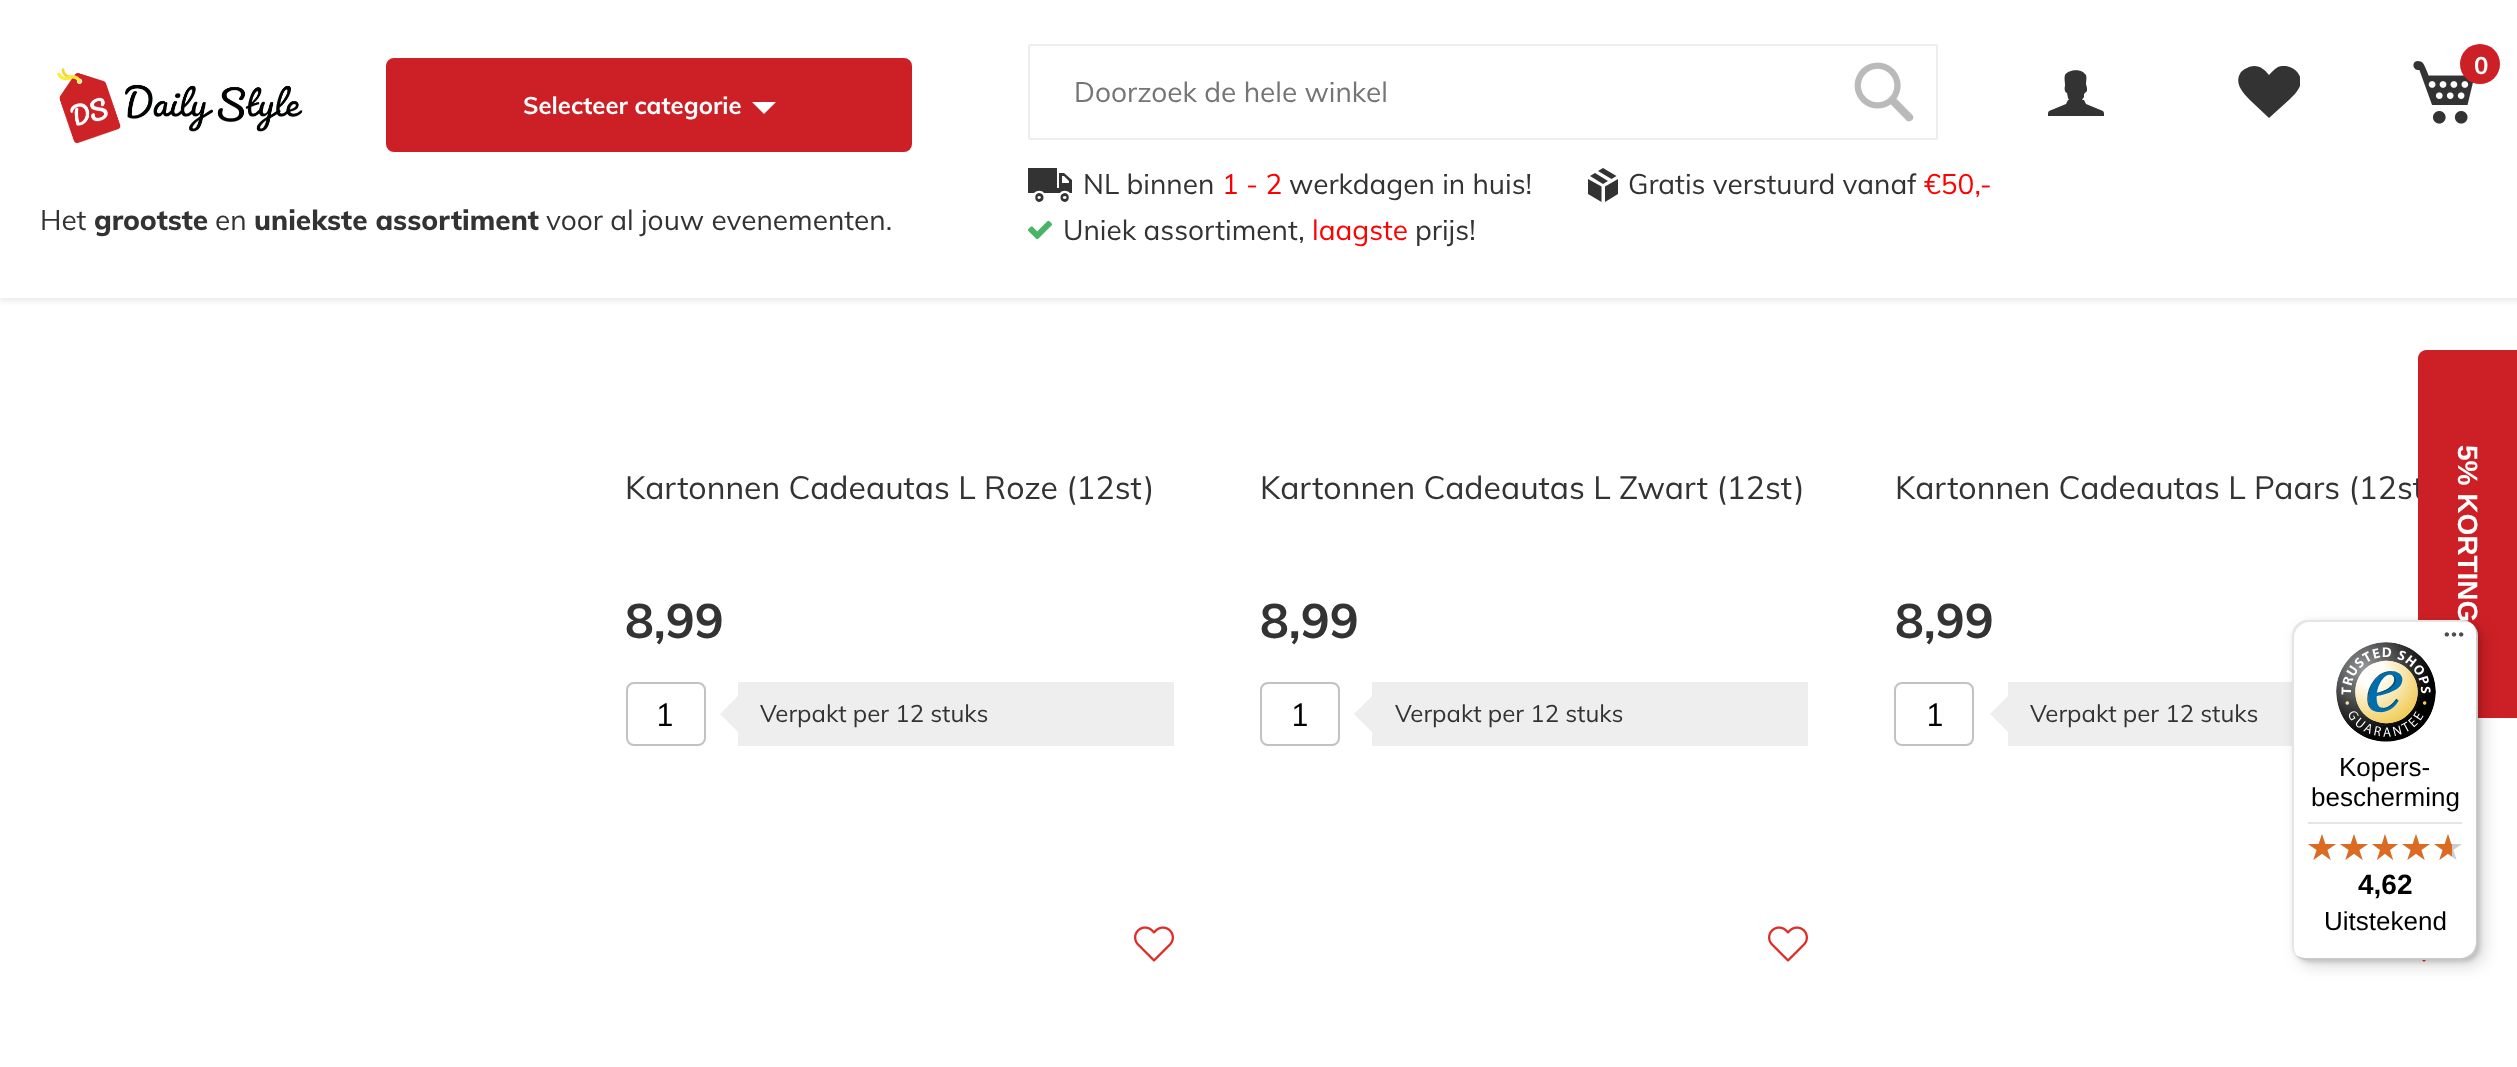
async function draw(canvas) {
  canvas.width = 2517;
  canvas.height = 1067;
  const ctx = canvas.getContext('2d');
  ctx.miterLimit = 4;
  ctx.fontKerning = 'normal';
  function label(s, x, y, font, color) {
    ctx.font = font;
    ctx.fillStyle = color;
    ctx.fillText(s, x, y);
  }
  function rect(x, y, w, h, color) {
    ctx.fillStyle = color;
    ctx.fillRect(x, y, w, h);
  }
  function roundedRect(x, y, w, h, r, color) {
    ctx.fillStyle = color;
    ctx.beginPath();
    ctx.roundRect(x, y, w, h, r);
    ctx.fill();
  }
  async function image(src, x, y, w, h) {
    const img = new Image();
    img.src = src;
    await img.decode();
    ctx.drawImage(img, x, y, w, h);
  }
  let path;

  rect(0, 0, 2517, 1067, '#fff');
  ctx.fillStyle = '#eee';
  ctx.filter = 'blur(2px)';
  ctx.beginPath();
  ctx.rect(0, 0, 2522, 302);
  ctx.fill();
  ctx.filter = 'none';
  rect(0, 0, 2517, 298, '#fff');
  await image('assets/img1.png', 57, 68, 246, 76);
  ctx.fillStyle = '#cd2026';
  ctx.beginPath();
  ctx.roundRect(387, 59, 524, 92, 7);
  ctx.fill();
  ctx.strokeStyle = '#cd2026';
  ctx.lineWidth = 2;
  ctx.stroke();
  label('Selecteer categorie', 523, 114, 'bold 24px Muli', '#fff');
  path = new Path2D('M752 102H776L764 114Z');
  ctx.fill(path);
  label('Het', 40, 230, '28px Muli', '#333');
  label('grootste', 94, 230, '800 28px Muli', '#333');
  label('en', 215, 230, '28px Muli', '#333');
  label('uniekste assortiment', 254, 230, '800 28px Muli', '#333');
  label('voor al jouw evenementen.', 546, 230, '28px Muli', '#333');
  ctx.beginPath();
  ctx.roundRect(1029, 45, 908, 94, 1);
  ctx.strokeStyle = '#eee';
  ctx.stroke();
  label('Doorzoek de hele winkel', 1074, 102, '28px Muli', '#757575');
  await image('assets/img2.png', 1854, 62, 60, 60);
  ctx.save();
  ctx.beginPath();
  ctx.rect(2048, 70, 56, 46);
  ctx.clip();
  ctx.fillStyle = '#333';
  path = new Path2D('M2086 75C2087 78 2086 81 2086 84L2087 88V91C2086 92 2085 93 2084 94V97L2082 100H2084L2086 104L2103 111C2105 113 2104 119 2104 121H2048C2048 119 2047 113 2049 111L2066 104L2068 100H2069L2068 98L2067 93C2065 93 2064 89 2065 86V85C2065 81 2064 79 2065 75C2068 70 2078 69 2083 72L2084 73Z');
  ctx.fill(path);
  ctx.restore();
  ctx.save();
  ctx.beginPath();
  ctx.rect(2238, 66, 62, 52);
  ctx.clip();
  ctx.fillStyle = '#333';
  path = new Path2D('M2254 66C2250 66 2244 69 2241 72C2233 84 2244 94 2252 102L2269 118L2290 99C2293 96 2297 92 2299 88C2306 75 2291 62 2278 67C2274 69 2272 72 2269 75C2265 70 2261 66 2254 66Z');
  ctx.fill(path);
  ctx.restore();
  await image('assets/img3.png', 2413, 61, 60, 63);
  ctx.fillStyle = '#cd2026';
  ctx.beginPath();
  ctx.arc(2480, 64, 20, 0, 2 * Math.PI);
  ctx.fill();
  label('0', 2474, 74, 'bold 24px Muli', '#fff');
  ctx.fillStyle = '#333';
  path = new Path2D('M1064 173H1059V188H1057V168H1028V193H1034C1037 190 1042 190 1044 193H1060C1062 190 1067 190 1070 193H1072V180ZM1062 183V176H1064L1069 181V183ZM1039 193C1034 193 1034 202 1039 202C1045 202 1045 193 1039 193ZM1065 193C1059 193 1059 202 1065 202C1070 202 1070 193 1065 193ZM1039 199C1037 199 1037 196 1039 196C1042 196 1041 199 1039 199ZM1065 199C1062 199 1062 196 1065 196C1067 196 1067 199 1065 199Z');
  ctx.fill(path, 'evenodd');
  label('NL binnen', 1083, 194, '28px Muli', '#333');
  label('1 - 2', 1222, 194, '28px Muli', '#f00');
  label('werkdagen in huis!', 1289, 194, '28px Muli', '#333');
  path = new Path2D('M1603 168L1616.5 176L1611.5 179L1598 171ZM1595 173L1608 181L1603 184L1590 176ZM1605 202L1618 194V179L1605 186.5ZM1588 179L1601.5 186.5V202L1588 194Z');
  ctx.fill(path, 'evenodd');
  label('Gratis verstuurd vanaf', 1628, 194, '28px Muli', '#333');
  label('€50,-', 1924, 194, '28px Muli', '#f00');
  await image('assets/img4.png', 1028, 220, 24, 20);
  label('Uniek assortiment,', 1063, 240, '28px Muli', '#333');
  label('laagste', 1312, 240, '28px Muli', '#f00');
  label('prijs!', 1415, 240, '28px Muli', '#333');
  label('Kartonnen Cadeautas L Roze (12st)', 625, 499, '32px Muli', '#333');
  label('8,99', 625, 638, 'bold 48px Muli', '#333');
  ctx.beginPath();
  ctx.roundRect(627, 683, 78, 62, 7);
  ctx.strokeStyle = '#c2c2c2';
  ctx.stroke();
  label('1', 655, 726, '32px Muli', '#000');
  rect(738, 682, 436, 64, '#eee');
  path = new Path2D('M738 696V732L720 714Z');
  ctx.fill(path);
  label('Verpakt per 12 stuks', 760, 722, '24px Muli', '#333');
  label('Kartonnen Cadeautas L Zwart (12st)', 1260, 499, '32px Muli', '#333');
  label('8,99', 1260, 638, 'bold 48px Muli', '#333');
  ctx.beginPath();
  ctx.roundRect(1261, 683, 78, 62, 7);
  ctx.stroke();
  label('1', 1290, 726, '32px Muli', '#000');
  rect(1372, 682, 436, 64, '#eee');
  path = new Path2D('M1372 696V732L1354 714Z');
  ctx.fill(path);
  label('Verpakt per 12 stuks', 1395, 722, '24px Muli', '#333');
  label('Kartonnen Cadeautas L Paars (12st', 1895, 499, '32px Muli', '#333');
  label('8,99', 1895, 638, 'bold 48px Muli', '#333');
  ctx.beginPath();
  ctx.roundRect(1895, 683, 78, 62, 7);
  ctx.stroke();
  label('1', 1925, 726, '32px Muli', '#000');
  rect(2008, 682, 284, 64, '#eee');
  path = new Path2D('M2008 696V732L1990 714Z');
  ctx.fill(path);
  label('Verpakt per 12 stuks', 2030, 722, '24px Muli', '#333');
  await image('assets/img5.png', 1134, 926, 40, 36);
  await image('assets/img5.png', 1768, 926, 40, 36);
  await image('assets/img6.png', 2422, 960, 4, 2);
  ctx.fillStyle = '#cd2026';
  path = new Path2D('M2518 350V718H2426C2422 718 2418 714 2418 710V358C2418 354 2422 350 2426 350Z');
  ctx.fill(path);
  ctx.font = 'bold 28px Liberation Sans';
  ctx.fillStyle = '#fff';
  ctx.save();
  ctx.translate(2458, 445);
  ctx.rotate(90 * Math.PI / 180);
  ctx.fillText('5% KORTING', 0, 0);
  ctx.restore();
  ctx.fillStyle = '#00000026';
  ctx.filter = 'blur(8px)';
  ctx.beginPath();
  ctx.roundRect(2298, 626, 186, 340, 16);
  ctx.fill();
  ctx.filter = 'none';
  ctx.filter = 'blur(2px)';
  ctx.beginPath();
  ctx.roundRect(2294, 622, 186, 340, 16);
  ctx.fill();
  ctx.filter = 'none';
  roundedRect(2292, 620, 186, 340, 16, '#fff');
  ctx.fillStyle = '#0000001a';
  path = new Path2D('M2310 622H2464C2468 622 2471 623 2474 625C2471 622 2467 620 2462 620H2308C2299 620 2292 627 2292 636V944C2292 949 2294 953 2297 956C2295 953 2294 950 2294 946V638C2294 629 2301 622 2310 622Z');
  ctx.fill(path);
  ctx.fillStyle = '#00000033';
  path = new Path2D('M2296 955C2299 958 2303 960 2308 960H2462C2471 960 2478 953 2478 944V636C2478 631 2476 627 2473 624C2475 627 2476 630 2476 634V942C2476 951 2469 958 2460 958H2306C2302 958 2299 957 2296 955Z');
  ctx.fill(path);
  ctx.fillStyle = '#32323233';
  path = new Path2D('M2297 955C2300 958 2304 960 2308 960H2462C2471 960 2478 953 2478 944V636C2478 632 2476 628 2473 625C2476 628 2477 631 2477 635V943C2477 952 2470 959 2461 959H2307C2303 959 2300 958 2297 955Z');
  ctx.fill(path);
  ctx.fillStyle = '#ffffff4d';
  path = new Path2D('M2297 955C2300 958 2304 960 2308 960H2462C2471 960 2478 953 2478 944V636C2478 632 2476 628 2473 625C2476 628 2477 631 2477 635V943C2477 952 2470 959 2461 959H2307C2303 959 2300 958 2297 955Z');
  ctx.fill(path);
  await image('assets/img7.png', 2444, 632, 20, 5);
  await image('assets/img8.png', 2336, 642, 100, 100);
  label('Kopers-', 2339, 776, '26px Liberation Sans', '#000');
  label('bescherming', 2311, 806, '26px Liberation Sans', '#000');
  rect(2308, 822, 154, 2, '#e5e5e5');
  await image('assets/img9.png', 2308, 834, 28, 26);
  await image('assets/img9.png', 2340, 834, 28, 26);
  await image('assets/img10.png', 2372, 834, 26, 26);
  await image('assets/img9.png', 2402, 834, 28, 26);
  await image('assets/img9.png', 2434, 834, 28, 26);
  await image('assets/img11.png', 2308, 834, 28, 26);
  await image('assets/img11.png', 2340, 834, 28, 26);
  await image('assets/img12.png', 2372, 834, 26, 26);
  await image('assets/img11.png', 2402, 834, 28, 26);
  await image('assets/img13.png', 2434, 834, 18, 26);
  label('4,62', 2358, 894, 'bold 28px Liberation Sans', '#000');
  label('Uitstekend', 2324, 930, '26px Liberation Sans', '#000');
}

draw(document.querySelector('canvas'));
